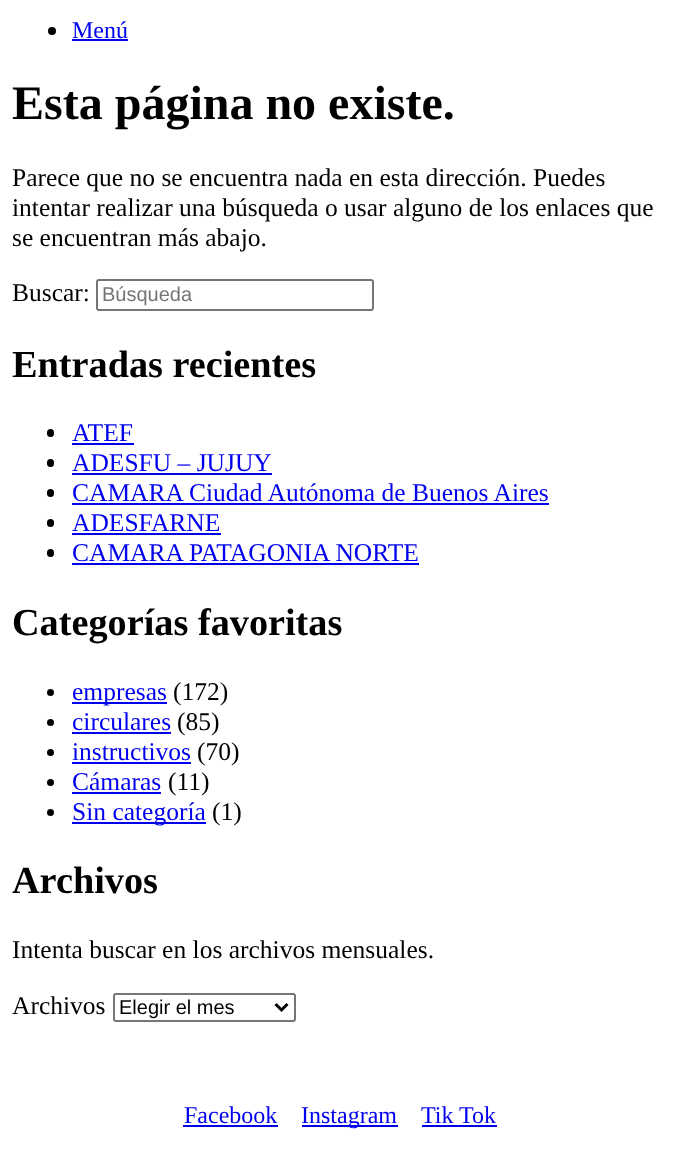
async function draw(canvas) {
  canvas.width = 679;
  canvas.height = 1166;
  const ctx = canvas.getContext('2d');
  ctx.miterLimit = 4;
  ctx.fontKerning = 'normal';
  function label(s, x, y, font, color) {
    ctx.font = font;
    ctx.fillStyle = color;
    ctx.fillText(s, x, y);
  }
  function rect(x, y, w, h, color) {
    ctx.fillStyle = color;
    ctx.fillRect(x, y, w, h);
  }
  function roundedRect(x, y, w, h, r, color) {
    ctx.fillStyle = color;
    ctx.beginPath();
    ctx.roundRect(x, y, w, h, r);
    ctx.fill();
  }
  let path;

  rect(0, 0, 679, 1166, '#fff');
  ctx.fillStyle = '#000';
  ctx.beginPath();
  ctx.arc(52, 31, 4, 0, 2 * Math.PI);
  ctx.fill();
  label('Menú', 72, 38, '24px Liberation Serif', '#00e');
  rect(72, 39, 56, 2, '#00e');
  label('Esta página no existe.', 12, 119, 'bold 48px Liberation Serif', '#000');
  label('Parece que no se encuentra nada en esta dirección. Puedes', 12, 186, '25.5px Liberation Serif', '#000');
  label('intentar realizar una búsqueda o usar alguno de los enlaces que', 12, 216, '25.5px Liberation Serif', '#000');
  label('se encuentran más abajo.', 12, 246, '25.5px Liberation Serif', '#000');
  label('Buscar:', 12, 301, '25.5px Liberation Serif', '#000');
  ctx.beginPath();
  ctx.roundRect(97, 280, 276, 30, 2);
  ctx.strokeStyle = '#767676';
  ctx.lineWidth = 2;
  ctx.stroke();
  label('Búsqueda', 102, 301, '20px Liberation Sans', '#757575');
  label('Entradas recientes', 12, 377, 'bold 38.25px Liberation Serif', '#000');
  roundedRect(47, 429, 7, 8, 3.5, '#000');
  label('ATEF', 72, 441, '25.5px Liberation Serif', '#00e');
  rect(72, 443, 62, 2, '#00e');
  roundedRect(47, 459, 7, 8, 3.5, '#000');
  label('ADESFU – JUJUY', 72, 471, '25.5px Liberation Serif', '#00e');
  rect(72, 473, 200, 2, '#00e');
  roundedRect(47, 489, 7, 8, 3.5, '#000');
  label('CAMARA Ciudad Autónoma de Buenos Aires', 72, 501, '25.5px Liberation Serif', '#00e');
  rect(72, 503, 477, 2, '#00e');
  roundedRect(47, 519, 7, 8, 3.5, '#000');
  label('ADESFARNE', 72, 531, '25.5px Liberation Serif', '#00e');
  rect(72, 533, 149, 2, '#00e');
  roundedRect(47, 549, 7, 8, 3.5, '#000');
  label('CAMARA PATAGONIA NORTE', 72, 561, '25.5px Liberation Serif', '#00e');
  rect(72, 563, 347, 2, '#00e');
  label('Categorías favoritas', 12, 635, 'bold 38.25px Liberation Serif', '#000');
  ctx.beginPath();
  ctx.arc(50.5, 692.5, 3.5, 0, 2 * Math.PI);
  ctx.fill();
  rect(72, 702, 95, 2, '#00e');
  label('empresas', 72, 700, '25.5px Liberation Serif', '#00e');
  label('(172)', 173, 700, '25.5px Liberation Serif', '#000');
  ctx.beginPath();
  ctx.arc(50.5, 722.5, 3.5, 0, 2 * Math.PI);
  ctx.fill();
  label('circulares', 72, 730, '25.5px Liberation Serif', '#00e');
  rect(72, 732, 99, 2, '#00e');
  label('(85)', 177, 730, '25.5px Liberation Serif', '#000');
  ctx.beginPath();
  ctx.arc(50.5, 752.5, 3.5, 0, 2 * Math.PI);
  ctx.fill();
  label('instructivos', 72, 760, '25.5px Liberation Serif', '#00e');
  rect(72, 762, 119, 2, '#00e');
  label('(70)', 197, 760, '25.5px Liberation Serif', '#000');
  ctx.beginPath();
  ctx.arc(50.5, 782.5, 3.5, 0, 2 * Math.PI);
  ctx.fill();
  label('Cámaras', 72, 790, '25.5px Liberation Serif', '#00e');
  rect(72, 792, 89, 2, '#00e');
  label('(11)', 168, 790, '25.5px Liberation Serif', '#000');
  ctx.beginPath();
  ctx.arc(50.5, 812.5, 3.5, 0, 2 * Math.PI);
  ctx.fill();
  rect(72, 822, 134, 2, '#00e');
  label('Sin categoría', 72, 820, '25.5px Liberation Serif', '#00e');
  label('(1)', 212, 820, '25.5px Liberation Serif', '#000');
  label('Archivos', 12, 893, 'bold 38.25px Liberation Serif', '#000');
  label('Intenta buscar en los archivos mensuales.', 12, 958, '25.5px Liberation Serif', '#000');
  label('Archivos', 12, 1014, '25.5px Liberation Serif', '#000');
  ctx.beginPath();
  ctx.roundRect(114, 994, 181, 27, 2);
  ctx.stroke();
  path = new Path2D('M275.5 1004L281.5 1010L287.5 1004');
  ctx.strokeStyle = '#000';
  ctx.lineWidth = 3;
  ctx.stroke(path);
  label('Elegir el mes', 119, 1014, '20px Liberation Sans', '#000');
  label('Facebook', 184, 1123, '24px Liberation Serif', '#00e');
  rect(183, 1125, 95, 2, '#00e');
  rect(302, 1125, 96, 2, '#00e');
  label('Instagram', 301, 1123, '24px Liberation Serif', '#00e');
  label('Tik Tok', 421, 1123, '24px Liberation Serif', '#00e');
  rect(422, 1125, 75, 2, '#00e');
}

draw(document.querySelector('canvas'));
